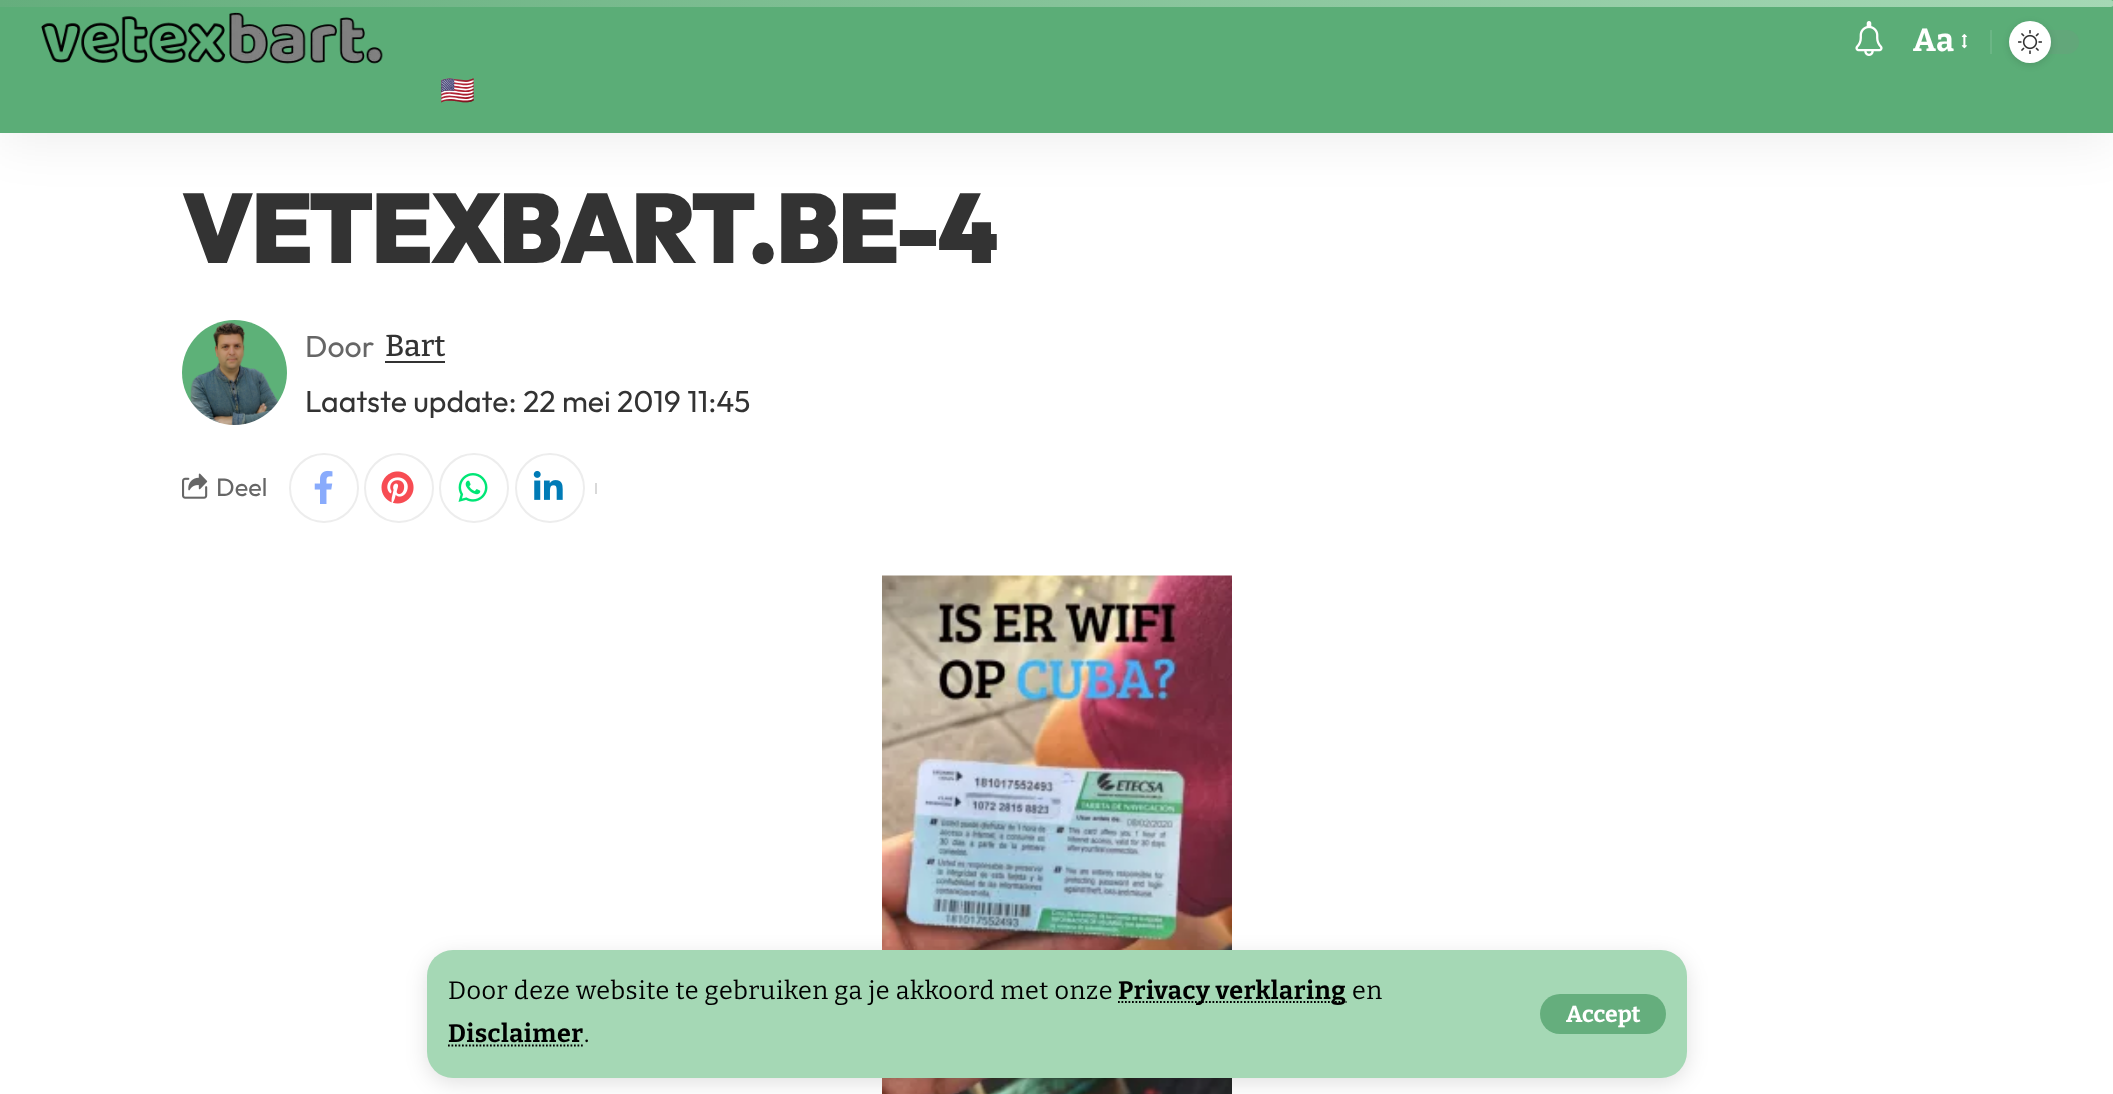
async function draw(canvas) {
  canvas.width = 2113;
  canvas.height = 1094;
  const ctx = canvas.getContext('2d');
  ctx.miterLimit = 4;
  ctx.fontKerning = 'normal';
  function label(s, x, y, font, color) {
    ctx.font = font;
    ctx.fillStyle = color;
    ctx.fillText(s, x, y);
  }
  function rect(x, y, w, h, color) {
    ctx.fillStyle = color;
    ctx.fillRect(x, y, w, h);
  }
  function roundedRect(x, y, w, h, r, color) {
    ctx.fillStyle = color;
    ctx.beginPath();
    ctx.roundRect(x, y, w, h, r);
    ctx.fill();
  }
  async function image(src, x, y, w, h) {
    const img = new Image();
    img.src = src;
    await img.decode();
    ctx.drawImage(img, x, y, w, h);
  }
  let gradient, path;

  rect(0, 0, 2113, 1094, '#fff');
  ctx.fillStyle = '#00000012';
  ctx.filter = 'blur(26px)';
  ctx.beginPath();
  ctx.rect(0, -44, 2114, 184);
  ctx.fill();
  ctx.filter = 'none';
  rect(0, 0, 2113, 133, '#5bad77');
  gradient = ctx.createLinearGradient(0, 3.5, 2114, 3.5);
  gradient.addColorStop(0, '#65ae7d');
  gradient.addColorStop(1, '#a5d8b5');
  ctx.fillStyle = gradient;
  path = new Path2D('M0 0H2110.5C2112.5 0 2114 1.5 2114 3.5C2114 5.5 2112.5 7 2110.5 7H0Z');
  ctx.fill(path);
  await image('assets/img1.png', 41, 12, 342, 52);
  await image('assets/img2.png', 1855, 21, 28, 35);
  ctx.letterSpacing = '0.53px';
  label('Aa', 1913, 51, 'bold 32px Bitter', '#fff');
  await image('assets/img3.png', 1961, 34, 6, 15);
  rect(1990, 30, 2, 24, '#6bb585');
  roundedRect(2009, 30, 70, 24, 12, '#62a77a');
  ctx.fillStyle = '#0000001f';
  ctx.filter = 'blur(3.5px)';
  ctx.beginPath();
  ctx.roundRect(2009, 23, 42, 42, 21);
  ctx.fill();
  ctx.filter = 'none';
  ctx.fillStyle = '#fff';
  ctx.beginPath();
  ctx.arc(2030, 42, 21, 0, 2 * Math.PI);
  ctx.fill();
  await image('assets/img4.png', 2018, 30, 24, 24);
  ctx.letterSpacing = '-1px';
  label('🇺🇸', 440, 100, 'bold 28px Noto Color Emoji', '#fff');
  await image('assets/img11.png', 882, 575, 350, 519);
  ctx.fillStyle = '#0000001f';
  ctx.filter = 'blur(10.5px)';
  ctx.beginPath();
  ctx.roundRect(427, 956, 1260, 127, 26);
  ctx.fill();
  ctx.filter = 'none';
  roundedRect(427, 950, 1260, 128, 26, '#a5d8b5');
  ctx.letterSpacing = '0.53px';
  label('Door deze website te gebruiken ga je akkoord met onze', 448, 999, '25.2px Bitter', '#000');
  path = new Path2D('M1118 1002H1346.5');
  ctx.strokeStyle = '#000';
  ctx.lineWidth = 1.8;
  ctx.setLineDash([1.75, 1.75]);
  ctx.stroke(path);
  label('Privacy verklaring', 1118, 999, 'bold 25.2px Bitter', '#000');
  label('en', 1352, 999, '25.2px Bitter', '#000');
  label('Disclaimer', 448, 1042, 'bold 25.2px Bitter', '#000');
  path = new Path2D('M448 1045.5H583.5');
  ctx.stroke(path);
  label('.', 584, 1042, '25.2px Bitter', '#000');
  roundedRect(1540, 994, 126, 40, 20, '#65ae7d');
  ctx.letterSpacing = '0px';
  label('Accept', 1566, 1022, 'bold 23px Bitter', '#fff');
  ctx.letterSpacing = '-2.75px';
  label('VETEXBART.BE-4', 182, 263, '900 98px Outfit', '#333');
  await image('assets/img5.png', 182, 320, 105, 105);
  ctx.letterSpacing = '0px';
  label('Door', 305, 357, '30.25px Outfit', '#666');
  label('Bart', 385, 356, '500 30.25px Bitter', '#333');
  rect(385, 361, 60, 2, '#333');
  label('Laatste update: 22 mei 2019 11:45', 305, 412, '30.25px Outfit', '#333');
  await image('assets/img6.png', 182, 473, 26, 26);
  label('Deel', 216, 496, '25.2px Outfit', '#666');
  ctx.beginPath();
  ctx.arc(324, 488, 34, 0, 2 * Math.PI);
  ctx.strokeStyle = '#ededed';
  ctx.lineWidth = 2;
  ctx.setLineDash([]);
  ctx.stroke();
  await image('assets/img7.png', 314, 470, 19, 34);
  ctx.beginPath();
  ctx.arc(399, 488, 34, 0, 2 * Math.PI);
  ctx.stroke();
  await image('assets/img8.png', 381, 471, 33, 33);
  ctx.beginPath();
  ctx.arc(474, 488, 34, 0, 2 * Math.PI);
  ctx.stroke();
  await image('assets/img9.png', 458, 473, 30, 29);
  ctx.beginPath();
  ctx.arc(550, 488, 34, 0, 2 * Math.PI);
  ctx.stroke();
  await image('assets/img10.png', 533, 470, 30, 30);
  rect(595, 483, 2, 11, '#d9d9d9');
}

draw(document.querySelector('canvas'));
